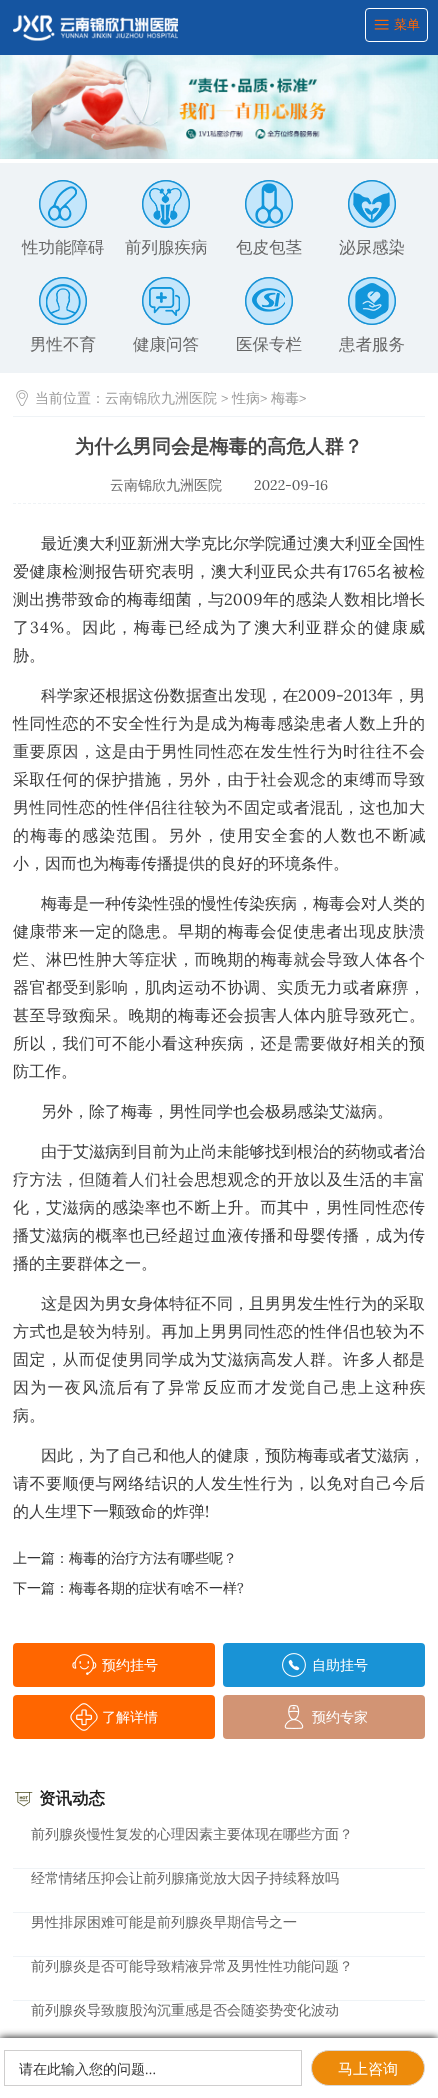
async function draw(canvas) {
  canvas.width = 438;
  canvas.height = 2098;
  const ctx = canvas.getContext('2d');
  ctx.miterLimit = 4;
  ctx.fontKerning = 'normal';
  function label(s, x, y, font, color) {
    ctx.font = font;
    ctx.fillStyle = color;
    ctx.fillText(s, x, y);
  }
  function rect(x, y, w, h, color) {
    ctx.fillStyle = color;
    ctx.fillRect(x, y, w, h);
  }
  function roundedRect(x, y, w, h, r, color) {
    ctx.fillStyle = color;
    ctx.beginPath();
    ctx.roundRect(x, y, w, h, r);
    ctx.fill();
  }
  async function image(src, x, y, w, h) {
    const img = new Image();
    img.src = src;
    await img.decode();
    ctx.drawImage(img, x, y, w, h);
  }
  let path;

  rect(0, 0, 438, 2098, '#fff');
  rect(0, 0, 438, 55, '#1555a1');
  await image('assets/img1.png', 13, 15, 165, 26);
  ctx.beginPath();
  ctx.roundRect(365.5, 8.5, 62, 33, 3.5);
  ctx.strokeStyle = '#fff';
  ctx.stroke();
  await image('assets/img2.png', 374, 19, 15, 11);
  label('菜单', 394, 29, '500 13px WenQuanYi Zen Hei', '#f60');
  await image('assets/img3.png', 0, 55, 438, 104);
  rect(0, 163, 438, 210, '#eff3f6');
  ctx.fillStyle = '#0089d1';
  ctx.beginPath();
  ctx.arc(63, 204, 24, 0, 2 * Math.PI);
  ctx.fill();
  await image('assets/img4.png', 39, 180, 48, 48);
  label('性功能障碍', 22, 253, '500 16.5px WenQuanYi Zen Hei', '#666');
  ctx.fillStyle = '#0089d1';
  ctx.beginPath();
  ctx.arc(166, 204, 24, 0, 2 * Math.PI);
  ctx.fill();
  await image('assets/img5.png', 142, 180, 48, 48);
  label('前列腺疾病', 125, 253, '500 16.5px WenQuanYi Zen Hei', '#666');
  ctx.fillStyle = '#0089d1';
  ctx.beginPath();
  ctx.arc(269, 204, 24, 0, 2 * Math.PI);
  ctx.fill();
  await image('assets/img6.png', 245, 180, 48, 48);
  label('包皮包茎', 236, 253, '500 16.5px WenQuanYi Zen Hei', '#666');
  ctx.fillStyle = '#0089d1';
  ctx.beginPath();
  ctx.arc(372, 204, 24, 0, 2 * Math.PI);
  ctx.fill();
  await image('assets/img7.png', 348, 180, 48, 48);
  label('泌尿感染', 339, 253, '500 16.5px WenQuanYi Zen Hei', '#666');
  ctx.fillStyle = '#0089d1';
  ctx.beginPath();
  ctx.arc(63, 301, 24, 0, 2 * Math.PI);
  ctx.fill();
  await image('assets/img8.png', 39, 277, 48, 48);
  label('男性不育', 30, 350, '500 16.5px WenQuanYi Zen Hei', '#666');
  ctx.fillStyle = '#0089d1';
  ctx.beginPath();
  ctx.arc(166, 301, 24, 0, 2 * Math.PI);
  ctx.fill();
  await image('assets/img9.png', 142, 277, 48, 48);
  label('健康问答', 133, 350, '500 16.5px WenQuanYi Zen Hei', '#666');
  ctx.fillStyle = '#0089d1';
  ctx.beginPath();
  ctx.arc(269, 301, 24, 0, 2 * Math.PI);
  ctx.fill();
  await image('assets/img10.png', 245, 277, 48, 48);
  label('医保专栏', 236, 350, '500 16.5px WenQuanYi Zen Hei', '#666');
  ctx.fillStyle = '#0089d1';
  ctx.beginPath();
  ctx.arc(372, 301, 24, 0, 2 * Math.PI);
  ctx.fill();
  await image('assets/img11.png', 348, 277, 48, 48);
  label('患者服务', 339, 350, '500 16.5px WenQuanYi Zen Hei', '#666');
  rect(13, 416, 412, 1, '#eff3f6');
  await image('assets/img12.png', 16, 390, 12, 16);
  label('当前位置：云南锦欣九洲医院', 35, 403, '500 14px WenQuanYi Zen Hei', '#9b9b9b');
  label('>', 221, 403, '14px Lora', '#9b9b9b');
  label('性病', 232, 403, '500 14px WenQuanYi Zen Hei', '#9b9b9b');
  label('>', 260, 403, '14px Lora', '#9b9b9b');
  label('梅毒', 271, 403, '500 14px WenQuanYi Zen Hei', '#9b9b9b');
  label('>', 299, 403, '14px Lora', '#9b9b9b');
  label('为什么男同会是梅毒的高危人群？', 75, 453, 'bold 19.2px WenQuanYi Zen Hei', '#444');
  path = new Path2D('M13 503.5H425');
  ctx.strokeStyle = '#eff3f6';
  ctx.setLineDash([3, 1.99]);
  ctx.stroke(path);
  label('云南锦欣九洲医院', 110, 490, '500 14px WenQuanYi Zen Hei', '#666');
  label('2022-09-16', 254, 490, '14px Lora', '#595a5b');
  label('最近澳大利亚新洲大学克比尔学院通过澳大利亚全国性', 41, 549, '500 16px WenQuanYi Zen Hei', '#3a3a3a');
  ctx.letterSpacing = '0.5px';
  label('爱健康检测报告研究表明，澳大利亚民众共有', 13, 577, '500 16px WenQuanYi Zen Hei', '#3a3a3a');
  label('1765', 343, 577, '16px Lora', '#3a3a3a');
  label('名被检', 376, 577, '500 16px WenQuanYi Zen Hei', '#3a3a3a');
  ctx.letterSpacing = '0.25px';
  label('测出携带致命的梅毒细菌，与', 13, 605, '500 16px WenQuanYi Zen Hei', '#3a3a3a');
  label('2009', 224, 605, '16px Lora', '#3a3a3a');
  label('年的感染人数相比增长', 263, 605, '500 16px WenQuanYi Zen Hei', '#3a3a3a');
  ctx.letterSpacing = '1.2px';
  label('了', 13, 633, '500 16px WenQuanYi Zen Hei', '#3a3a3a');
  label('34%', 30, 633, '16px Lora', '#3a3a3a');
  label('。因此，梅毒已经成为了澳大利亚群众的健康威', 65, 633, '500 16px WenQuanYi Zen Hei', '#3a3a3a');
  ctx.letterSpacing = '0px';
  label('胁。', 13, 661, '500 16px WenQuanYi Zen Hei', '#3a3a3a');
  ctx.letterSpacing = '0.1px';
  label('科学家还根据这份数据查出发现，在', 41, 701, '500 16px WenQuanYi Zen Hei', '#3a3a3a');
  label('2009-2013', 298, 701, '16px Lora', '#3a3a3a');
  label('年，男', 377, 701, '500 16px WenQuanYi Zen Hei', '#3a3a3a');
  ctx.letterSpacing = '0.5px';
  label('性同性恋的不安全性行为是成为梅毒感染患者人数上升的', 13, 729, '500 16px WenQuanYi Zen Hei', '#3a3a3a');
  label('重要原因，这是由于男性同性恋在发生性行为时往往不会', 13, 757, '500 16px WenQuanYi Zen Hei', '#3a3a3a');
  label('采取任何的保护措施，另外，由于社会观念的束缚而导致', 13, 785, '500 16px WenQuanYi Zen Hei', '#3a3a3a');
  label('男性同性恋的性伴侣往往较为不固定或者混乱，这也加大', 13, 813, '500 16px WenQuanYi Zen Hei', '#3a3a3a');
  ctx.letterSpacing = '1.25px';
  label('的梅毒的感染范围。另外，使用安全套的人数也不断减', 13, 841, '500 16px WenQuanYi Zen Hei', '#3a3a3a');
  ctx.letterSpacing = '0px';
  label('小，因而也为梅毒传播提供的良好的环境条件。', 13, 869, '500 16px WenQuanYi Zen Hei', '#3a3a3a');
  label('梅毒是一种传染性强的慢性传染疾病，梅毒会对人类的', 41, 909, '500 16px WenQuanYi Zen Hei', '#3a3a3a');
  ctx.letterSpacing = '0.5px';
  label('健康带来一定的隐患。早期的梅毒会促使患者出现皮肤溃', 13, 937, '500 16px WenQuanYi Zen Hei', '#3a3a3a');
  label('烂、淋巴性肿大等症状，而晚期的梅毒就会导致人体各个', 13, 965, '500 16px WenQuanYi Zen Hei', '#3a3a3a');
  label('器官都受到影响，肌肉运动不协调、实质无力或者麻痹，', 13, 993, '500 16px WenQuanYi Zen Hei', '#3a3a3a');
  label('甚至导致痴呆。晚期的梅毒还会损害人体内脏导致死亡。', 13, 1021, '500 16px WenQuanYi Zen Hei', '#3a3a3a');
  label('所以，我们可不能小看这种疾病，还是需要做好相关的预', 13, 1049, '500 16px WenQuanYi Zen Hei', '#3a3a3a');
  ctx.letterSpacing = '0px';
  label('防工作。', 13, 1077, '500 16px WenQuanYi Zen Hei', '#3a3a3a');
  label('另外，除了梅毒，男性同学也会极易感染艾滋病。', 41, 1117, '500 16px WenQuanYi Zen Hei', '#3a3a3a');
  label('由于艾滋病到目前为止尚未能够找到根治的药物或者治', 41, 1157, '500 16px WenQuanYi Zen Hei', '#3a3a3a');
  ctx.letterSpacing = '0.5px';
  label('疗方法，但随着人们社会思想观念的开放以及生活的丰富', 13, 1185, '500 16px WenQuanYi Zen Hei', '#3a3a3a');
  label('化，艾滋病的感染率也不断上升。而其中，男性同性恋传', 13, 1213, '500 16px WenQuanYi Zen Hei', '#3a3a3a');
  label('播艾滋病的概率也已经超过血液传播和母婴传播，成为传', 13, 1241, '500 16px WenQuanYi Zen Hei', '#3a3a3a');
  ctx.letterSpacing = '0px';
  label('播的主要群体之一。', 13, 1269, '500 16px WenQuanYi Zen Hei', '#3a3a3a');
  label('这是因为男女身体特征不同，且男男发生性行为的采取', 41, 1309, '500 16px WenQuanYi Zen Hei', '#3a3a3a');
  ctx.letterSpacing = '0.5px';
  label('方式也是较为特别。再加上男男同性恋的性伴侣也较为不', 13, 1337, '500 16px WenQuanYi Zen Hei', '#3a3a3a');
  label('固定，从而促使男同学成为艾滋病高发人群。许多人都是', 13, 1365, '500 16px WenQuanYi Zen Hei', '#3a3a3a');
  ctx.letterSpacing = '1.25px';
  label('因为一夜风流后有了异常反应而才发觉自己患上这种疾', 13, 1393, '500 16px WenQuanYi Zen Hei', '#3a3a3a');
  ctx.letterSpacing = '0px';
  label('病。', 13, 1421, '500 16px WenQuanYi Zen Hei', '#3a3a3a');
  label('因此，为了自己和他人的健康，预防梅毒或者艾滋病，', 41, 1461, '500 16px WenQuanYi Zen Hei', '#3a3a3a');
  ctx.letterSpacing = '0.5px';
  label('请不要顺便与网络结识的人发生性行为，以免对自己今后', 13, 1489, '500 16px WenQuanYi Zen Hei', '#3a3a3a');
  ctx.letterSpacing = '0px';
  label('的人生埋下一颗致命的炸弹', 13, 1517, '500 16px WenQuanYi Zen Hei', '#3a3a3a');
  label('!', 205, 1517, '16px Lora', '#3a3a3a');
  label('上一篇：梅毒的治疗方法有哪些呢？', 13, 1563, '500 14px WenQuanYi Zen Hei', '#333');
  label('下一篇：梅毒各期的症状有啥不一样', 13, 1593, '500 14px WenQuanYi Zen Hei', '#333');
  label('?', 237, 1593, '14px Lora', '#333');
  roundedRect(13, 1643, 202, 44, 4, '#f60');
  await image('assets/img13.png', 72, 1654, 25, 21);
  label('预约挂号', 102, 1670, '500 14px WenQuanYi Zen Hei', '#fff');
  roundedRect(223, 1643, 202, 44, 4, '#1993d6');
  await image('assets/img14.png', 282, 1653, 24, 24);
  label('自助挂号', 312, 1670, '500 14px WenQuanYi Zen Hei', '#fff');
  roundedRect(13, 1695, 202, 44, 4, '#f60');
  await image('assets/img15.png', 70, 1703, 28, 28);
  label('了解详情', 102, 1722, '500 14px WenQuanYi Zen Hei', '#fff');
  roundedRect(223, 1695, 202, 44, 4, '#d29474');
  await image('assets/img16.png', 284, 1704, 20, 25);
  label('预约专家', 312, 1722, '500 14px WenQuanYi Zen Hei', '#fff');
  await image('assets/img17.png', 15, 1792, 18, 15);
  label('资讯动态', 39, 1804, 'bold 16.5px WenQuanYi Zen Hei', '#212121');
  rect(13, 1868, 412, 1, '#eff3f6');
  label('前列腺炎慢性复发的心理因素主要体现在哪些方面？', 31, 1839, '500 14px WenQuanYi Zen Hei', '#666');
  rect(13, 1912, 412, 1, '#eff3f6');
  label('经常情绪压抑会让前列腺痛觉放大因子持续释放吗', 31, 1883, '500 14px WenQuanYi Zen Hei', '#666');
  rect(13, 1956, 412, 1, '#eff3f6');
  label('男性排尿困难可能是前列腺炎早期信号之一', 31, 1927, '500 14px WenQuanYi Zen Hei', '#666');
  rect(13, 2000, 412, 1, '#eff3f6');
  label('前列腺炎是否可能导致精液异常及男性性功能问题？', 31, 1971, '500 14px WenQuanYi Zen Hei', '#666');
  label('前列腺炎导致腹股沟沉重感是否会随姿势变化波动', 31, 2015, '500 14px WenQuanYi Zen Hei', '#666');
  ctx.fillStyle = '#000';
  ctx.filter = 'blur(4px)';
  ctx.beginPath();
  ctx.rect(0, 2038, 438, 60);
  ctx.fill();
  ctx.filter = 'none';
  rect(0, 2038, 438, 60, '#fff');
  ctx.strokeStyle = '#cfcece';
  ctx.setLineDash([]);
  ctx.strokeRect(4.5, 2050.5, 297, 35);
  label('请在此输入您的问题', 19, 2074, '500 14px WenQuanYi Zen Hei', '#333');
  label('…', 145, 2074, '14px Lora', '#333');
  ctx.fillStyle = '#ed8b0b';
  ctx.beginPath();
  ctx.roundRect(311.5, 2050.5, 113, 35, 17.5);
  ctx.fill();
  ctx.strokeStyle = '#d9d8d8';
  ctx.stroke();
  label('马上咨询', 338, 2074, '500 15px WenQuanYi Zen Hei', '#fff');
}

draw(document.querySelector('canvas'));
